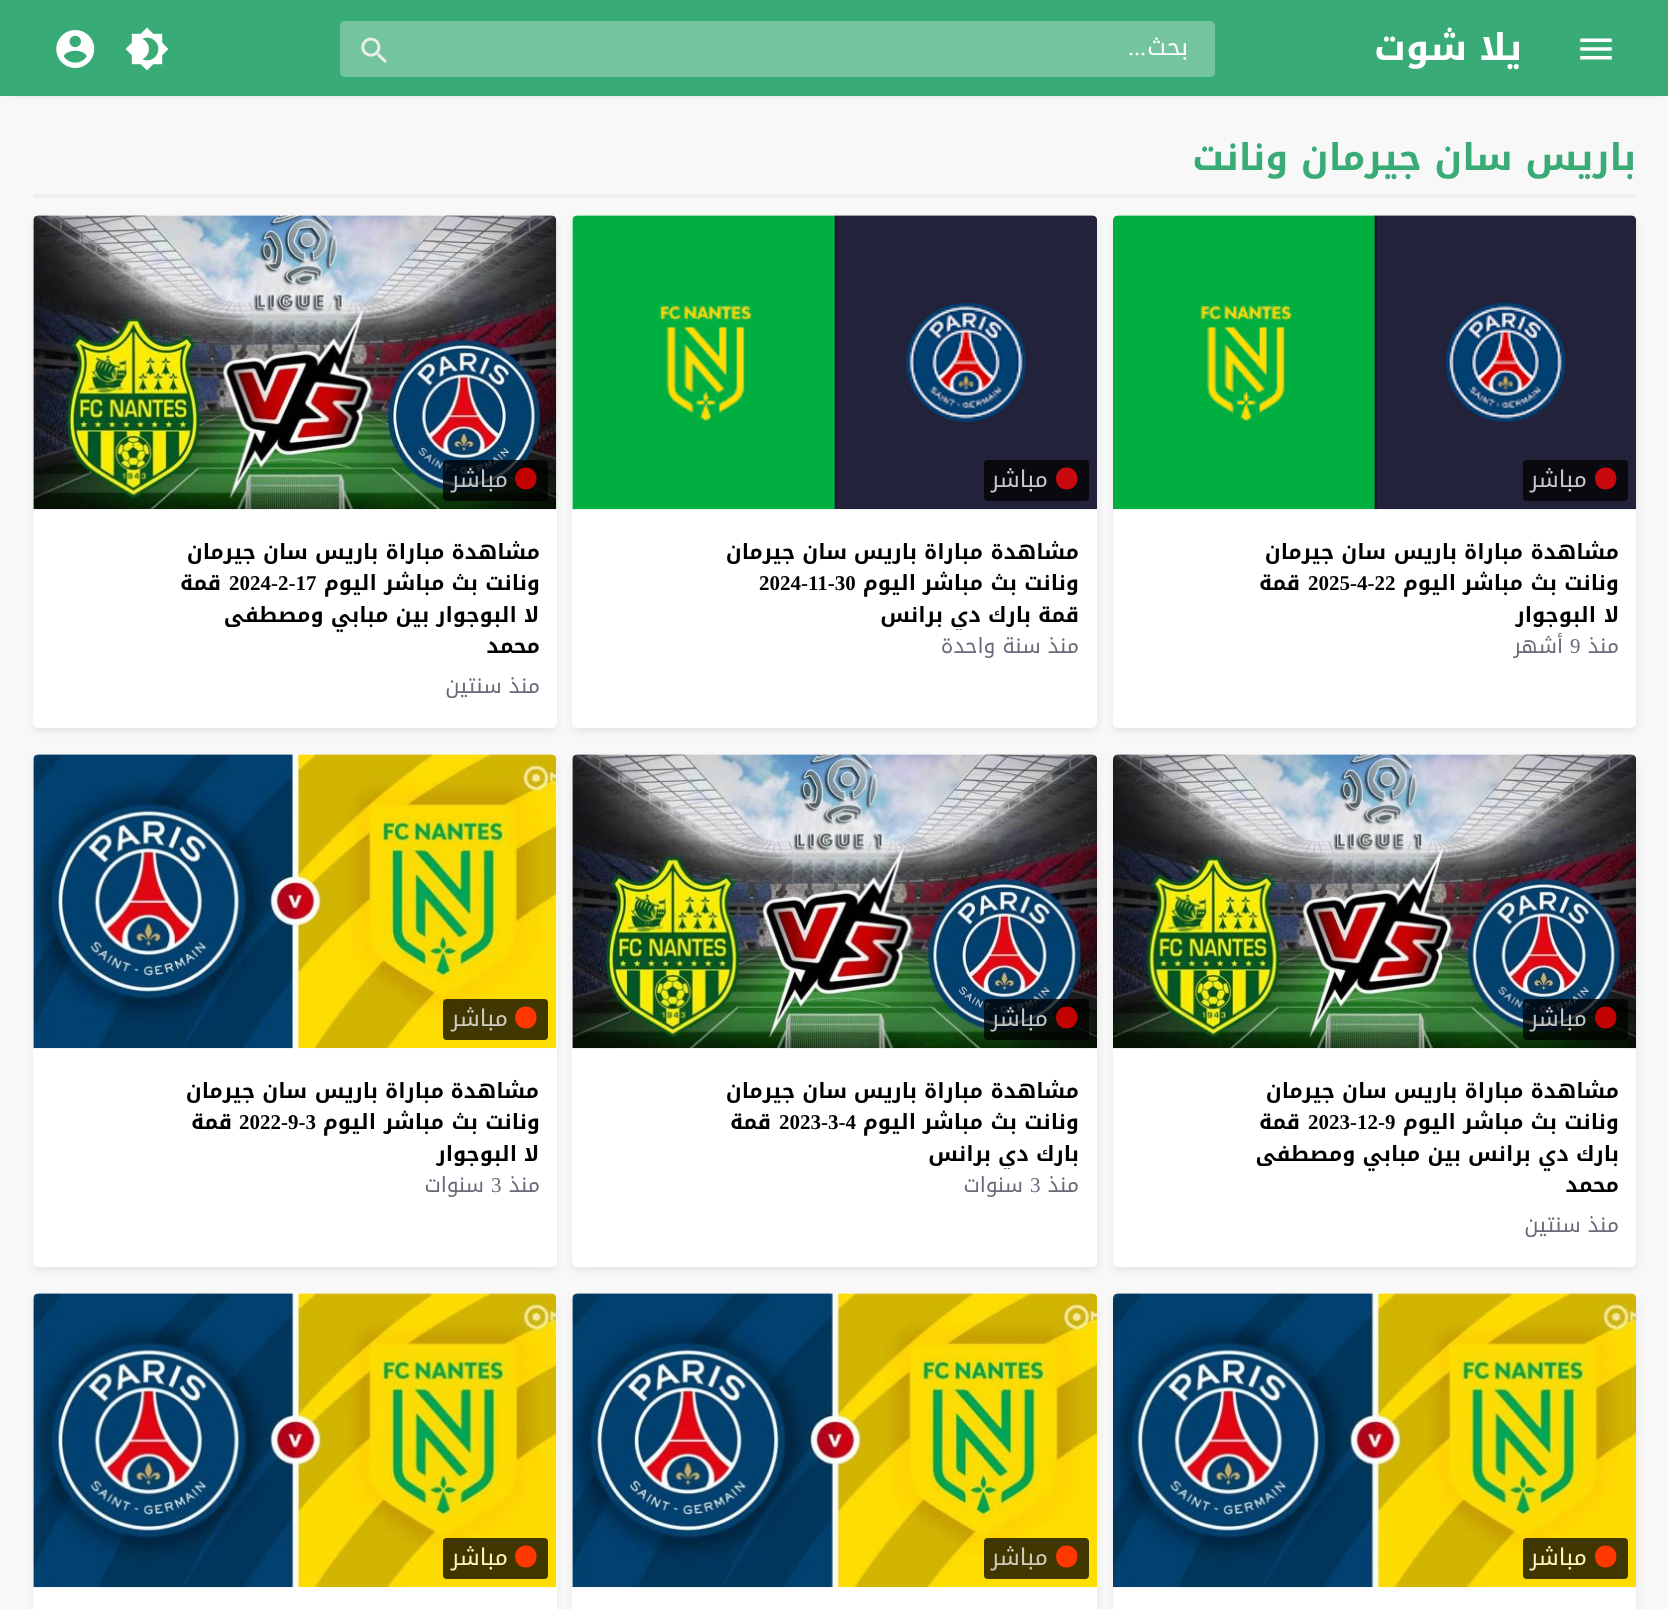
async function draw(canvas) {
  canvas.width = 1668;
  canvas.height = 1609;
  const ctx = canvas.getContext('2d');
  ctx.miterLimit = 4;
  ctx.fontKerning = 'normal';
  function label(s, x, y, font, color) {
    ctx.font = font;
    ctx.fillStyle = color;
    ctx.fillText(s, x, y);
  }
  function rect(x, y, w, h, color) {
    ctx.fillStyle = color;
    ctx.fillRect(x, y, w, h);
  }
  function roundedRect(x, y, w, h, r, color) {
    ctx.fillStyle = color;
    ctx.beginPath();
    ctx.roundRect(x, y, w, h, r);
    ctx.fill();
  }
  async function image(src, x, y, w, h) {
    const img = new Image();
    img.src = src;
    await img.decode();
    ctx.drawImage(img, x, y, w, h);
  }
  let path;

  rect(0, 0, 1668, 1609, '#f8f8f8');
  ctx.fillStyle = '#999';
  ctx.filter = 'blur(4.5px)';
  ctx.beginPath();
  ctx.rect(9, 12, 1652, 79);
  ctx.fill();
  ctx.filter = 'none';
  rect(0, 0, 1668, 96, '#38ab77');
  await image('assets/img1.png', 1580, 38, 32, 22);
  ctx.direction = 'rtl';
  label('يلا شوت', 1522, 60, 'bold 36.75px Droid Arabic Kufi', '#fff');
  roundedRect(340, 21, 875, 56, 5, '#74c4a0');
  ctx.beginPath();
  ctx.roundRect(427, 21, 788, 56, [0, 5, 5, 0]);
  ctx.fill();
  label('بحث', 1188, 55, '24px Droid Arabic Kufi', '#fff');
  label('...', 1146, 55, '24px Liberation Serif', '#fff');
  await image('assets/img2.png', 361, 37, 26, 26);
  await image('assets/img3.png', 125, 27, 44, 44);
  await image('assets/img4.png', 56, 30, 39, 38);
  rect(33, 194, 1603, 4, '#eee');
  label('باريس سان جيرمان ونانت', 1636, 170, 'bold 36.75px Droid Arabic Kufi', '#38ab77');
  ctx.fillStyle = '#ddd';
  ctx.filter = 'blur(4.5px)';
  ctx.beginPath();
  ctx.roundRect(1115, 221, 520, 509, 4);
  ctx.fill();
  ctx.filter = 'none';
  roundedRect(1113, 215, 523, 513, 5, '#fff');
  await image('assets/img5.png', 1113, 215, 523, 295);
  roundedRect(1523, 460, 105, 41, 4, '#09090f');
  ctx.fillStyle = '#c8090f';
  path = new Path2D('M1605.5 467.5C1591.5 467.5 1591.5 489.5 1605.5 489.5C1620 489.5 1620 467.5 1605.5 467.5Z');
  ctx.fill(path);
  label('مباشر', 1587, 487, '23px Droid Arabic Kufi', '#c8c8ce');
  label('مشاهدة', 1619, 559, 'bold 21px Droid Arabic Kufi', '#000');
  label('مباراة', 1523, 559, 'bold 21px Droid Arabic Kufi', '#000');
  label('باريس', 1457, 559, 'bold 21px Droid Arabic Kufi', '#000');
  label('سان', 1386, 559, 'bold 21px Droid Arabic Kufi', '#000');
  label('جيرمان', 1334, 559, 'bold 21px Droid Arabic Kufi', '#000');
  label('ونانت', 1619, 590, 'bold 21px Droid Arabic Kufi', '#000');
  label('بث', 1557, 590, 'bold 21px Droid Arabic Kufi', '#000');
  label('مباشر', 1523, 590, 'bold 21px Droid Arabic Kufi', '#000');
  label('اليوم', 1456, 590, 'bold 21px Droid Arabic Kufi', '#000');
  ctx.direction = 'ltr';
  label('2025-4-22', 1308, 590, 'bold 21px Liberation Serif', '#000');
  ctx.direction = 'rtl';
  label('قمة', 1300, 590, 'bold 21px Droid Arabic Kufi', '#000');
  label('لا', 1619, 622, 'bold 21px Droid Arabic Kufi', '#000');
  label('البوجوار', 1596, 622, 'bold 21px Droid Arabic Kufi', '#000');
  label('منذ', 1619, 653, '21px Droid Arabic Kufi', '#6e6779');
  ctx.direction = 'ltr';
  label('9', 1570, 653, '21px Liberation Serif', '#6e6779');
  ctx.direction = 'rtl';
  label('أشهر', 1563, 653, '21px Droid Arabic Kufi', '#6e6779');
  ctx.fillStyle = '#ddd';
  ctx.filter = 'blur(4.5px)';
  ctx.beginPath();
  ctx.roundRect(574, 221, 522, 509, 4);
  ctx.fill();
  ctx.filter = 'none';
  roundedRect(572, 215, 525, 513, 5, '#fff');
  await image('assets/img6.png', 572, 215, 525, 295);
  roundedRect(984, 460, 105, 41, 4, '#09090f');
  ctx.fillStyle = '#c8090f';
  path = new Path2D('M1066.5 467.5C1052.5 467.5 1052.5 489.5 1066.5 489.5C1081 489.5 1081 467.5 1066.5 467.5Z');
  ctx.fill(path);
  label('مباشر', 1048, 487, '23px Droid Arabic Kufi', '#c8c8ce');
  label('مشاهدة', 1079, 559, 'bold 21px Droid Arabic Kufi', '#000');
  label('مباراة', 983, 559, 'bold 21px Droid Arabic Kufi', '#000');
  label('باريس', 917, 559, 'bold 21px Droid Arabic Kufi', '#000');
  label('سان', 847, 559, 'bold 21px Droid Arabic Kufi', '#000');
  label('جيرمان', 795, 559, 'bold 21px Droid Arabic Kufi', '#000');
  label('ونانت', 1079, 590, 'bold 21px Droid Arabic Kufi', '#000');
  label('بث', 1017, 590, 'bold 21px Droid Arabic Kufi', '#000');
  label('مباشر', 983, 590, 'bold 21px Droid Arabic Kufi', '#000');
  label('اليوم', 916, 590, 'bold 21px Droid Arabic Kufi', '#000');
  ctx.direction = 'ltr';
  label('2024-11-30', 759, 590, 'bold 21px Liberation Serif', '#000');
  ctx.direction = 'rtl';
  label('قمة', 1079, 622, 'bold 21px Droid Arabic Kufi', '#000');
  label('بارك', 1031, 622, 'bold 21px Droid Arabic Kufi', '#000');
  ctx.save();
  ctx.beginPath();
  ctx.rect(712, 536, 368, 94);
  ctx.clip();
  label('دي', 981, 622, 'bold 21px Droid Arabic Kufi', '#000');
  ctx.restore();
  label('برانس', 943, 622, 'bold 21px Droid Arabic Kufi', '#000');
  label('منذ سنة واحدة', 1079, 653, '21px Droid Arabic Kufi', '#6e6779');
  ctx.fillStyle = '#ddd';
  ctx.filter = 'blur(4.5px)';
  ctx.beginPath();
  ctx.roundRect(35, 221, 520, 509, 4);
  ctx.fill();
  ctx.filter = 'none';
  roundedRect(33, 215, 524, 513, 5, '#fff');
  await image('assets/img7.png', 33, 215, 524, 295);
  roundedRect(443, 460, 105, 41, 4, '#000000bf');
  ctx.fillStyle = '#ff0000bf';
  path = new Path2D('M526 467.5C511.5 467.5 511.5 489.5 526 489.5C540 489.5 540 467.5 526 467.5Z');
  ctx.fill(path);
  label('مباشر', 508, 487, '23px Droid Arabic Kufi', '#c3c6c7');
  label('مشاهدة مباراة باريس سان جيرمان', 540, 559, 'bold 21px Droid Arabic Kufi', '#000');
  label('ونانت بث مباشر اليوم', 540, 590, 'bold 21px Droid Arabic Kufi', '#000');
  ctx.direction = 'ltr';
  label('2024-2-17', 229, 590, 'bold 21px Liberation Serif', '#000');
  ctx.direction = 'rtl';
  label('قمة', 221, 590, 'bold 21px Droid Arabic Kufi', '#000');
  label('لا البوجوار بين مبابي ومصطفى', 539, 622, 'bold 21px Droid Arabic Kufi', '#000');
  label('محمد', 540, 653, 'bold 21px Droid Arabic Kufi', '#000');
  label('منذ سنتين', 540, 693, '21px Droid Arabic Kufi', '#6e6779');
  ctx.fillStyle = '#ddd';
  ctx.filter = 'blur(4.5px)';
  ctx.beginPath();
  ctx.roundRect(1115, 760, 520, 509, 4);
  ctx.fill();
  ctx.filter = 'none';
  roundedRect(1113, 754, 523, 513, 5, '#fff');
  await image('assets/img8.png', 1113, 754, 523, 295);
  roundedRect(1523, 999, 105, 41, 4, '#000000bf');
  ctx.fillStyle = '#ff0000bf';
  path = new Path2D('M1605.5 1006.5C1591.5 1006.5 1591.5 1028.5 1605.5 1028.5C1620 1028.5 1620 1006.5 1605.5 1006.5Z');
  ctx.fill(path);
  label('مباشر', 1587, 1026, '23px Droid Arabic Kufi', '#c3c6c7');
  label('مشاهدة مباراة باريس سان جيرمان', 1619, 1098, 'bold 21px Droid Arabic Kufi', '#000');
  label('ونانت بث مباشر اليوم', 1619, 1129, 'bold 21px Droid Arabic Kufi', '#000');
  ctx.direction = 'ltr';
  label('2023-12-9', 1308, 1129, 'bold 21px Liberation Serif', '#000');
  ctx.direction = 'rtl';
  label('قمة', 1300, 1129, 'bold 21px Droid Arabic Kufi', '#000');
  label('بارك دي برانس بين مبابي ومصطفى', 1619, 1161, 'bold 21px Droid Arabic Kufi', '#000');
  label('محمد', 1619, 1192, 'bold 21px Droid Arabic Kufi', '#000');
  label('منذ سنتين', 1619, 1232, '21px Droid Arabic Kufi', '#6e6779');
  ctx.fillStyle = '#ddd';
  ctx.filter = 'blur(4.5px)';
  ctx.beginPath();
  ctx.roundRect(574, 760, 522, 509, 4);
  ctx.fill();
  ctx.filter = 'none';
  roundedRect(572, 754, 525, 513, 5, '#fff');
  await image('assets/img9.png', 572, 754, 525, 295);
  roundedRect(984, 999, 105, 41, 4, '#000000bf');
  ctx.fillStyle = '#ff0000bf';
  path = new Path2D('M1066.5 1006.5C1052.5 1006.5 1052.5 1028.5 1066.5 1028.5C1081 1028.5 1081 1006.5 1066.5 1006.5Z');
  ctx.fill(path);
  label('مباشر', 1048, 1026, '23px Droid Arabic Kufi', '#c3c6c7');
  label('مشاهدة', 1079, 1098, 'bold 21px Droid Arabic Kufi', '#000');
  label('مباراة', 983, 1098, 'bold 21px Droid Arabic Kufi', '#000');
  label('باريس', 917, 1098, 'bold 21px Droid Arabic Kufi', '#000');
  label('سان', 847, 1098, 'bold 21px Droid Arabic Kufi', '#000');
  label('جيرمان', 795, 1098, 'bold 21px Droid Arabic Kufi', '#000');
  label('ونانت', 1079, 1129, 'bold 21px Droid Arabic Kufi', '#000');
  label('بث', 1017, 1129, 'bold 21px Droid Arabic Kufi', '#000');
  label('مباشر', 983, 1129, 'bold 21px Droid Arabic Kufi', '#000');
  label('اليوم', 916, 1129, 'bold 21px Droid Arabic Kufi', '#000');
  ctx.direction = 'ltr';
  label('2023-3-4', 779, 1129, 'bold 21px Liberation Serif', '#000');
  ctx.direction = 'rtl';
  label('قمة', 771, 1129, 'bold 21px Droid Arabic Kufi', '#000');
  label('بارك', 1079, 1161, 'bold 21px Droid Arabic Kufi', '#000');
  ctx.save();
  ctx.beginPath();
  ctx.rect(712, 1075, 368, 94);
  ctx.clip();
  label('دي', 1029, 1161, 'bold 21px Droid Arabic Kufi', '#000');
  ctx.restore();
  label('برانس', 991, 1161, 'bold 21px Droid Arabic Kufi', '#000');
  label('منذ', 1079, 1192, '21px Droid Arabic Kufi', '#6e6779');
  ctx.direction = 'ltr';
  label('3', 1030, 1192, '21px Liberation Serif', '#6e6779');
  ctx.direction = 'rtl';
  label('سنوات', 1023, 1192, '21px Droid Arabic Kufi', '#6e6779');
  ctx.fillStyle = '#ddd';
  ctx.filter = 'blur(4.5px)';
  ctx.beginPath();
  ctx.roundRect(35, 760, 520, 509, 4);
  ctx.fill();
  ctx.filter = 'none';
  roundedRect(33, 754, 524, 513, 5, '#fff');
  await image('assets/img10.png', 33, 754, 524, 295);
  roundedRect(443, 999, 105, 41, 4, '#000000bf');
  ctx.fillStyle = '#ff3701';
  path = new Path2D('M526 1006.5C511.5 1006.5 511.5 1028.5 526 1028.5C540 1028.5 540 1006.5 526 1006.5Z');
  ctx.fill(path);
  label('مباشر', 508, 1026, '23px Droid Arabic Kufi', '#cfcdbf');
  label('مشاهدة', 539, 1098, 'bold 21px Droid Arabic Kufi', '#000');
  label('مباراة', 444, 1098, 'bold 21px Droid Arabic Kufi', '#000');
  label('باريس', 378, 1098, 'bold 21px Droid Arabic Kufi', '#000');
  label('سان', 307, 1098, 'bold 21px Droid Arabic Kufi', '#000');
  label('جيرمان', 255, 1098, 'bold 21px Droid Arabic Kufi', '#000');
  label('ونانت', 540, 1129, 'bold 21px Droid Arabic Kufi', '#000');
  label('بث', 478, 1129, 'bold 21px Droid Arabic Kufi', '#000');
  label('مباشر', 444, 1129, 'bold 21px Droid Arabic Kufi', '#000');
  label('اليوم', 376, 1129, 'bold 21px Droid Arabic Kufi', '#000');
  ctx.direction = 'ltr';
  label('2022-9-3', 239, 1129, 'bold 21px Liberation Serif', '#000');
  ctx.direction = 'rtl';
  label('قمة', 232, 1129, 'bold 21px Droid Arabic Kufi', '#000');
  label('لا', 539, 1161, 'bold 21px Droid Arabic Kufi', '#000');
  label('البوجوار', 517, 1161, 'bold 21px Droid Arabic Kufi', '#000');
  label('منذ', 540, 1192, '21px Droid Arabic Kufi', '#6e6779');
  ctx.direction = 'ltr';
  label('3', 491, 1192, '21px Liberation Serif', '#6e6779');
  ctx.direction = 'rtl';
  label('سنوات', 484, 1192, '21px Droid Arabic Kufi', '#6e6779');
  ctx.fillStyle = '#ddd';
  ctx.filter = 'blur(4.5px)';
  ctx.beginPath();
  ctx.roundRect(1115, 1299, 520, 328, 4);
  ctx.fill();
  ctx.filter = 'none';
  roundedRect(1113, 1293, 523, 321, 5, '#fff');
  await image('assets/img11.png', 1113, 1293, 523, 295);
  roundedRect(1523, 1538, 105, 41, 4, '#000000bf');
  ctx.fillStyle = '#ff3700';
  path = new Path2D('M1605.5 1545.5C1591.5 1545.5 1591.5 1567.5 1605.5 1567.5C1620 1567.5 1620 1545.5 1605.5 1545.5Z');
  ctx.fill(path);
  label('مباشر', 1587, 1565, '23px Droid Arabic Kufi', '#fff6bf');
  ctx.fillStyle = '#ddd';
  ctx.filter = 'blur(4.5px)';
  ctx.beginPath();
  ctx.roundRect(574, 1299, 522, 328, 4);
  ctx.fill();
  ctx.filter = 'none';
  roundedRect(572, 1293, 525, 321, 5, '#fff');
  await image('assets/img12.png', 572, 1293, 525, 295);
  roundedRect(984, 1538, 105, 41, 4, '#000000bf');
  ctx.fillStyle = '#ff3701';
  path = new Path2D('M1066.5 1545.5C1052.5 1545.5 1052.5 1567.5 1066.5 1567.5C1081 1567.5 1081 1545.5 1066.5 1545.5Z');
  ctx.fill(path);
  label('مباشر', 1048, 1565, '23px Droid Arabic Kufi', '#cfcdbf');
  ctx.fillStyle = '#ddd';
  ctx.filter = 'blur(4.5px)';
  ctx.beginPath();
  ctx.roundRect(35, 1299, 520, 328, 4);
  ctx.fill();
  ctx.filter = 'none';
  roundedRect(33, 1293, 524, 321, 5, '#fff');
  await image('assets/img13.png', 33, 1293, 524, 295);
  roundedRect(443, 1538, 105, 41, 4, '#000000bf');
  ctx.fillStyle = '#ff3700';
  path = new Path2D('M526 1545.5C511.5 1545.5 511.5 1567.5 526 1567.5C540 1567.5 540 1545.5 526 1545.5Z');
  ctx.fill(path);
  label('مباشر', 508, 1565, '23px Droid Arabic Kufi', '#fff6bf');
}

draw(document.querySelector('canvas'));
